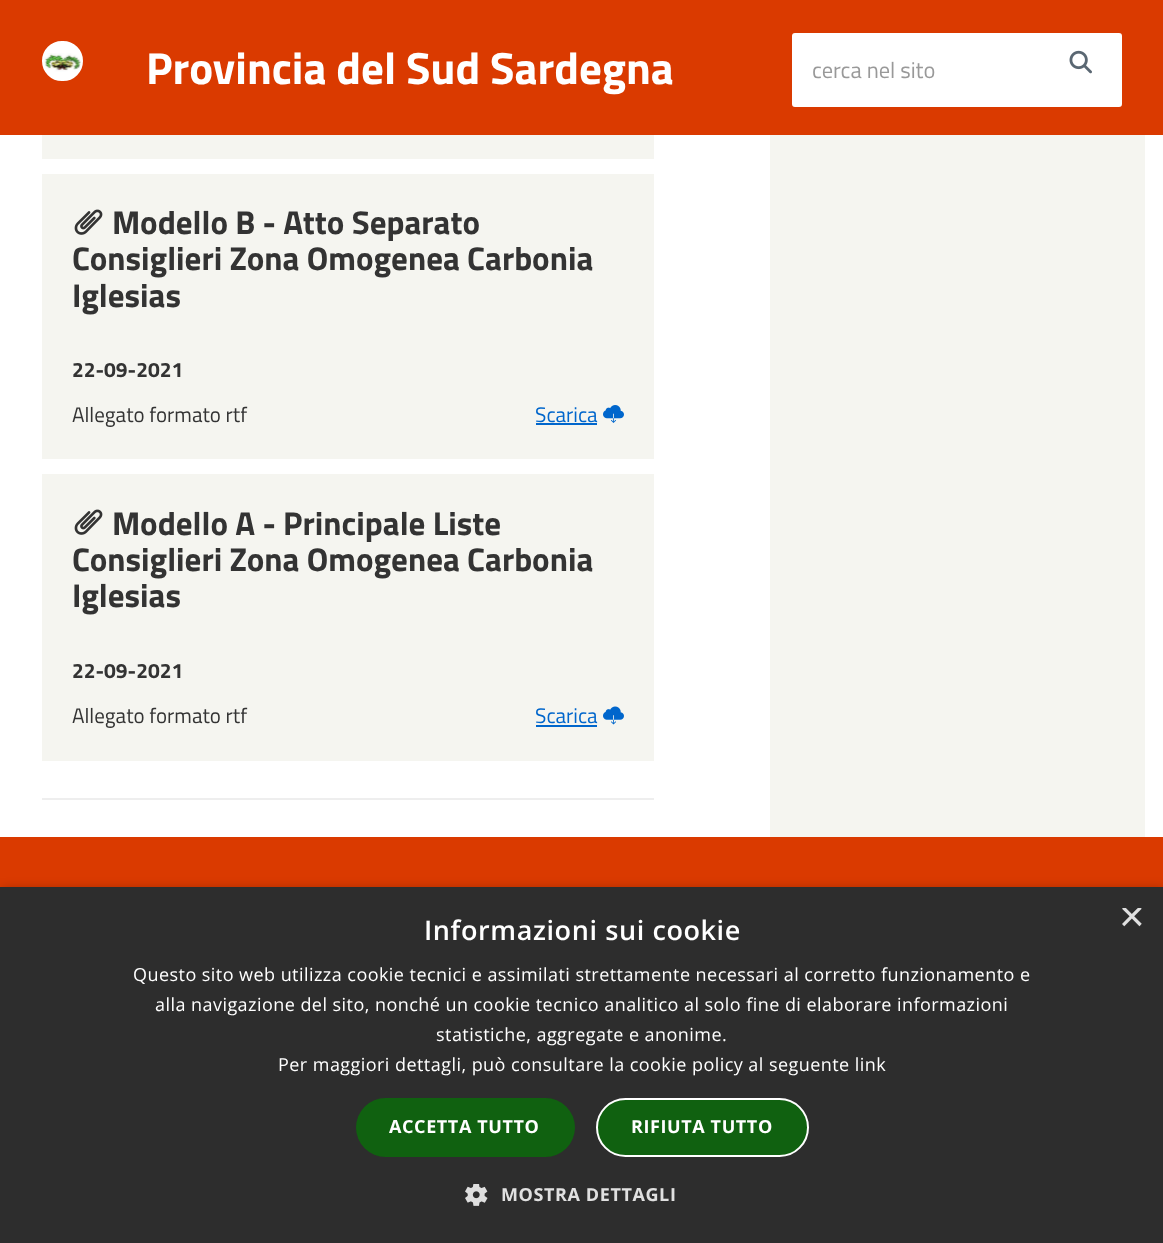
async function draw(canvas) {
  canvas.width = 1163;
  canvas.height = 1243;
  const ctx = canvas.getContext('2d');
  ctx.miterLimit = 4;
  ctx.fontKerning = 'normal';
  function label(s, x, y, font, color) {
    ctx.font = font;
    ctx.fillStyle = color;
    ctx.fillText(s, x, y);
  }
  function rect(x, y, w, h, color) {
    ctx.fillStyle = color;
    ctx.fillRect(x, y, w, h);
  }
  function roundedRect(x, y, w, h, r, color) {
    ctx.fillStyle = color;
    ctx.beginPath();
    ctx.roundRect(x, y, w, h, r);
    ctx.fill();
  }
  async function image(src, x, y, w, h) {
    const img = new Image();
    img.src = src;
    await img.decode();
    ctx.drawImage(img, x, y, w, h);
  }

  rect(0, 0, 1163, 1243, '#fff');
  rect(0, 0, 1163, 135, '#da3a00');
  ctx.fillStyle = '#fff';
  ctx.beginPath();
  ctx.roundRect(43, 42, 39, 38, 19);
  ctx.fill();
  ctx.strokeStyle = '#fff';
  ctx.lineWidth = 2;
  ctx.stroke();
  await image('assets/img1.png', 44, 53, 37, 19);
  label('Provincia del Sud Sardegna', 146, 84, 'bold 45px Titillium Web', '#fff');
  ctx.beginPath();
  ctx.roundRect(793, 34, 328, 72, 2);
  ctx.fill();
  ctx.stroke();
  label('cerca nel sito', 812, 78, '22.5px Titillium Web', '#999');
  await image('assets/img2.png', 1069, 50, 23, 24);
  rect(42, 135, 612, 24, '#f5f5f0');
  rect(42, 174, 612, 285, '#f5f5f0');
  await image('assets/img3.png', 74, 209, 29, 26);
  label('Modello B - Atto Separato', 112, 234, 'bold 33px Titillium Web', '#333');
  label('Consiglieri Zona Omogenea Carbonia', 72, 270, 'bold 33px Titillium Web', '#333');
  label('Iglesias', 72, 307, 'bold 33px Titillium Web', '#333');
  label('22-09-2021', 72, 377, 'bold 21px Titillium Web', '#333');
  label('Allegato formato rtf', 72, 422, '21px Titillium Web', '#333');
  label('Scarica', 535, 422, '21px Titillium Web', '#06c');
  rect(536, 423, 61, 2, '#06c');
  await image('assets/img4.png', 603, 405, 21, 18);
  rect(42, 474, 612, 287, '#f5f5f0');
  await image('assets/img3.png', 74, 509, 29, 26);
  label('Modello A - Principale Liste', 112, 535, 'bold 33px Titillium Web', '#333');
  label('Consiglieri Zona Omogenea Carbonia', 72, 571, 'bold 33px Titillium Web', '#333');
  label('Iglesias', 72, 607, 'bold 33px Titillium Web', '#333');
  label('22-09-2021', 72, 678, 'bold 21px Titillium Web', '#333');
  label('Allegato formato rtf', 72, 723, '21px Titillium Web', '#333');
  label('Scarica', 535, 723, '21px Titillium Web', '#06c');
  rect(536, 725, 61, 2, '#06c');
  await image('assets/img5.png', 603, 706, 21, 19);
  rect(42, 798, 612, 2, '#eee');
  rect(770, 135, 375, 702, '#f5f5f0');
  rect(0, 837, 1163, 50, '#da3a00');
  ctx.fillStyle = '#00000059';
  ctx.filter = 'blur(6px)';
  ctx.beginPath();
  ctx.rect(2, 890, 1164, 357);
  ctx.fill();
  ctx.filter = 'none';
  rect(0, 887, 1163, 356, '#2d2d2d');
  ctx.letterSpacing = '0.6px';
  label('Informazioni sui cookie', 424, 940, '600 27px Open Sans', '#fff');
  ctx.save();
  ctx.beginPath();
  ctx.rect(1119, 908, 23, 22);
  ctx.clip();
  ctx.letterSpacing = '0px';
  label('×', 1119, 931, '44px Liberation Sans', '#e0e0e0');
  ctx.restore();
  ctx.letterSpacing = '0.45px';
  label('Questo sito web utilizza cookie tecnici e assimilati strettamente necessari al corretto funzionamento e', 133, 981, '18px Open Sans', '#fff');
  label('alla navigazione del sito, nonché un cookie tecnico analitico al solo fine di elaborare informazioni', 155, 1011, '18px Open Sans', '#fff');
  label('statistiche, aggregate e anonime.', 436, 1041, '18px Open Sans', '#fff');
  label('Per maggiori dettagli, può consultare la cookie policy al seguente link', 278, 1071, '18px Open Sans', '#fff');
  roundedRect(356, 1098, 219, 59, 29.5, '#106110');
  ctx.letterSpacing = '0.6px';
  label('ACCETTA TUTTO', 389, 1133, 'bold 18px Open Sans', '#fff');
  ctx.fillStyle = '#106110';
  ctx.beginPath();
  ctx.roundRect(597, 1099, 211, 57, 28.5);
  ctx.fill();
  ctx.stroke();
  label('RIFIUTA TUTTO', 631, 1133, 'bold 18px Open Sans', '#fff');
  await image('assets/img6.png', 465, 1184, 23, 22);
  label('MOSTRA DETTAGLI', 501, 1201, 'bold 18px Open Sans', '#e0e0e0');
}

draw(document.querySelector('canvas'));
